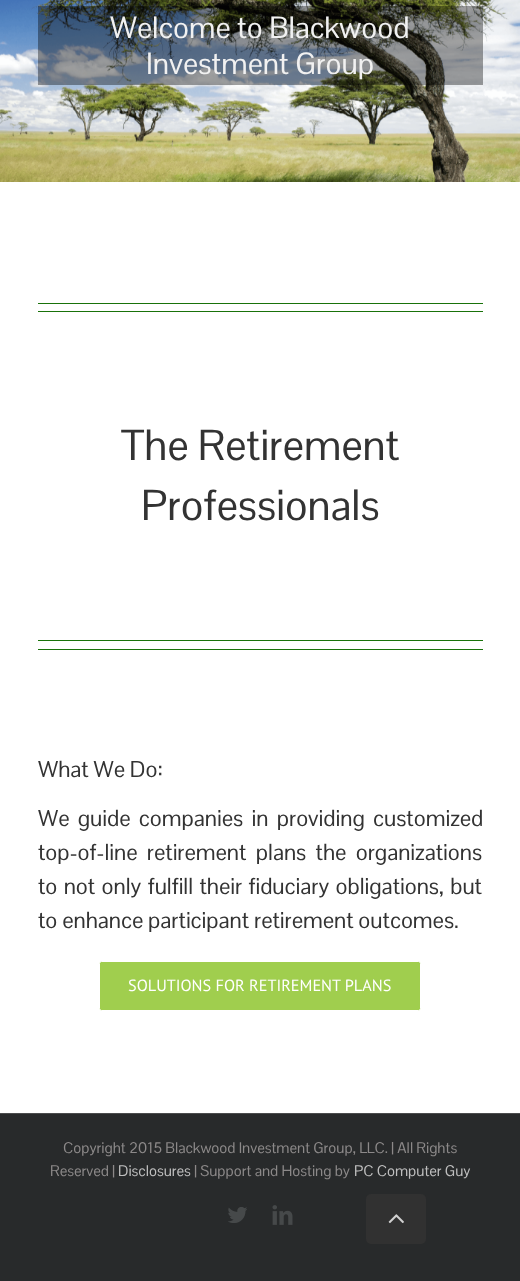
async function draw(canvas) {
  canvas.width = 520;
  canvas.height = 1281;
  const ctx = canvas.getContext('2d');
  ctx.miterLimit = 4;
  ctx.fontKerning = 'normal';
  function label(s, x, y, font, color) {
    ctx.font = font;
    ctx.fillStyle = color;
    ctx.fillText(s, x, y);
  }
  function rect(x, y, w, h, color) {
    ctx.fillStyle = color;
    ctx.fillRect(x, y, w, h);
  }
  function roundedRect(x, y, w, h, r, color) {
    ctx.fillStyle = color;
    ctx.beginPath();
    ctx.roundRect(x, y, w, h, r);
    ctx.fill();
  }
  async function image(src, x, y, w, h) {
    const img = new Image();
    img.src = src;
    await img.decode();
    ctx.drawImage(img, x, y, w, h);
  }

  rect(0, 0, 520, 1281, '#fff');
  await image('assets/img1.png', 0, 0, 520, 182);
  rect(38, 6, 445, 79, '#0000005e');
  label('Welcome to Blackwood', 110, 38, '30px Pontano Sans', '#f1f1f1');
  label('Investment Group', 146, 74, '30px Pontano Sans', '#f1f1f1');
  rect(38, 303, 445, 1, '#19720a');
  rect(38, 311, 445, 1, '#19720a');
  label('The Retirement', 121, 460, '42.5px Pontano Sans', '#333');
  label('Professionals', 141, 520, '42.5px Pontano Sans', '#333');
  rect(38, 640, 445, 1, '#19720a');
  rect(38, 649, 445, 1, '#19720a');
  label('What We Do:', 38, 777, '22.5px Pontano Sans', '#333');
  ctx.wordSpacing = '3.5px';
  label('We guide companies in providing customized', 38, 826, '22.5px Pontano Sans', '#333');
  ctx.wordSpacing = '4.5px';
  label('top-of-line retirement plans the organizations', 38, 860, '22.5px Pontano Sans', '#333');
  ctx.wordSpacing = '1.5px';
  label('to not only fulfill their fiduciary obligations, but', 38, 894, '22.5px Pontano Sans', '#333');
  ctx.wordSpacing = '0px';
  label('to enhance participant retirement outcomes.', 38, 928, '22.5px Pontano Sans', '#333');
  ctx.fillStyle = '#a0ce4e';
  ctx.beginPath();
  ctx.roundRect(99.5, 961.5, 321, 49, 2);
  ctx.fill();
  ctx.strokeStyle = '#fff';
  ctx.stroke();
  label('SOLUTIONS FOR RETIREMENT PLANS', 128, 991, '16.25px PT Sans', '#fff');
  rect(0, 1114, 520, 167, '#282a2b');
  rect(0, 1113, 520, 1, '#4b4c4d');
  label('Copyright 2015 Blackwood Investment Group, LLC. | All Rights', 63, 1153, '15px Pontano Sans', '#8c8989');
  label('Reserved |', 50, 1176, '15px Pontano Sans', '#8c8989');
  label('Disclosures', 118, 1176, '15px Pontano Sans', '#bfbfbf');
  label('| Support and Hosting by', 194, 1176, '15px Pontano Sans', '#8c8989');
  label('PC Computer Guy', 354, 1176, '15px Pontano Sans', '#bfbfbf');
  await image('assets/img2.png', 228, 1207, 19, 16);
  await image('assets/img3.png', 272, 1205, 21, 20);
  roundedRect(366, 1194, 60, 50, 5, '#313131');
  await image('assets/img4.png', 388, 1214, 16, 10);
}

draw(document.querySelector('canvas'));
